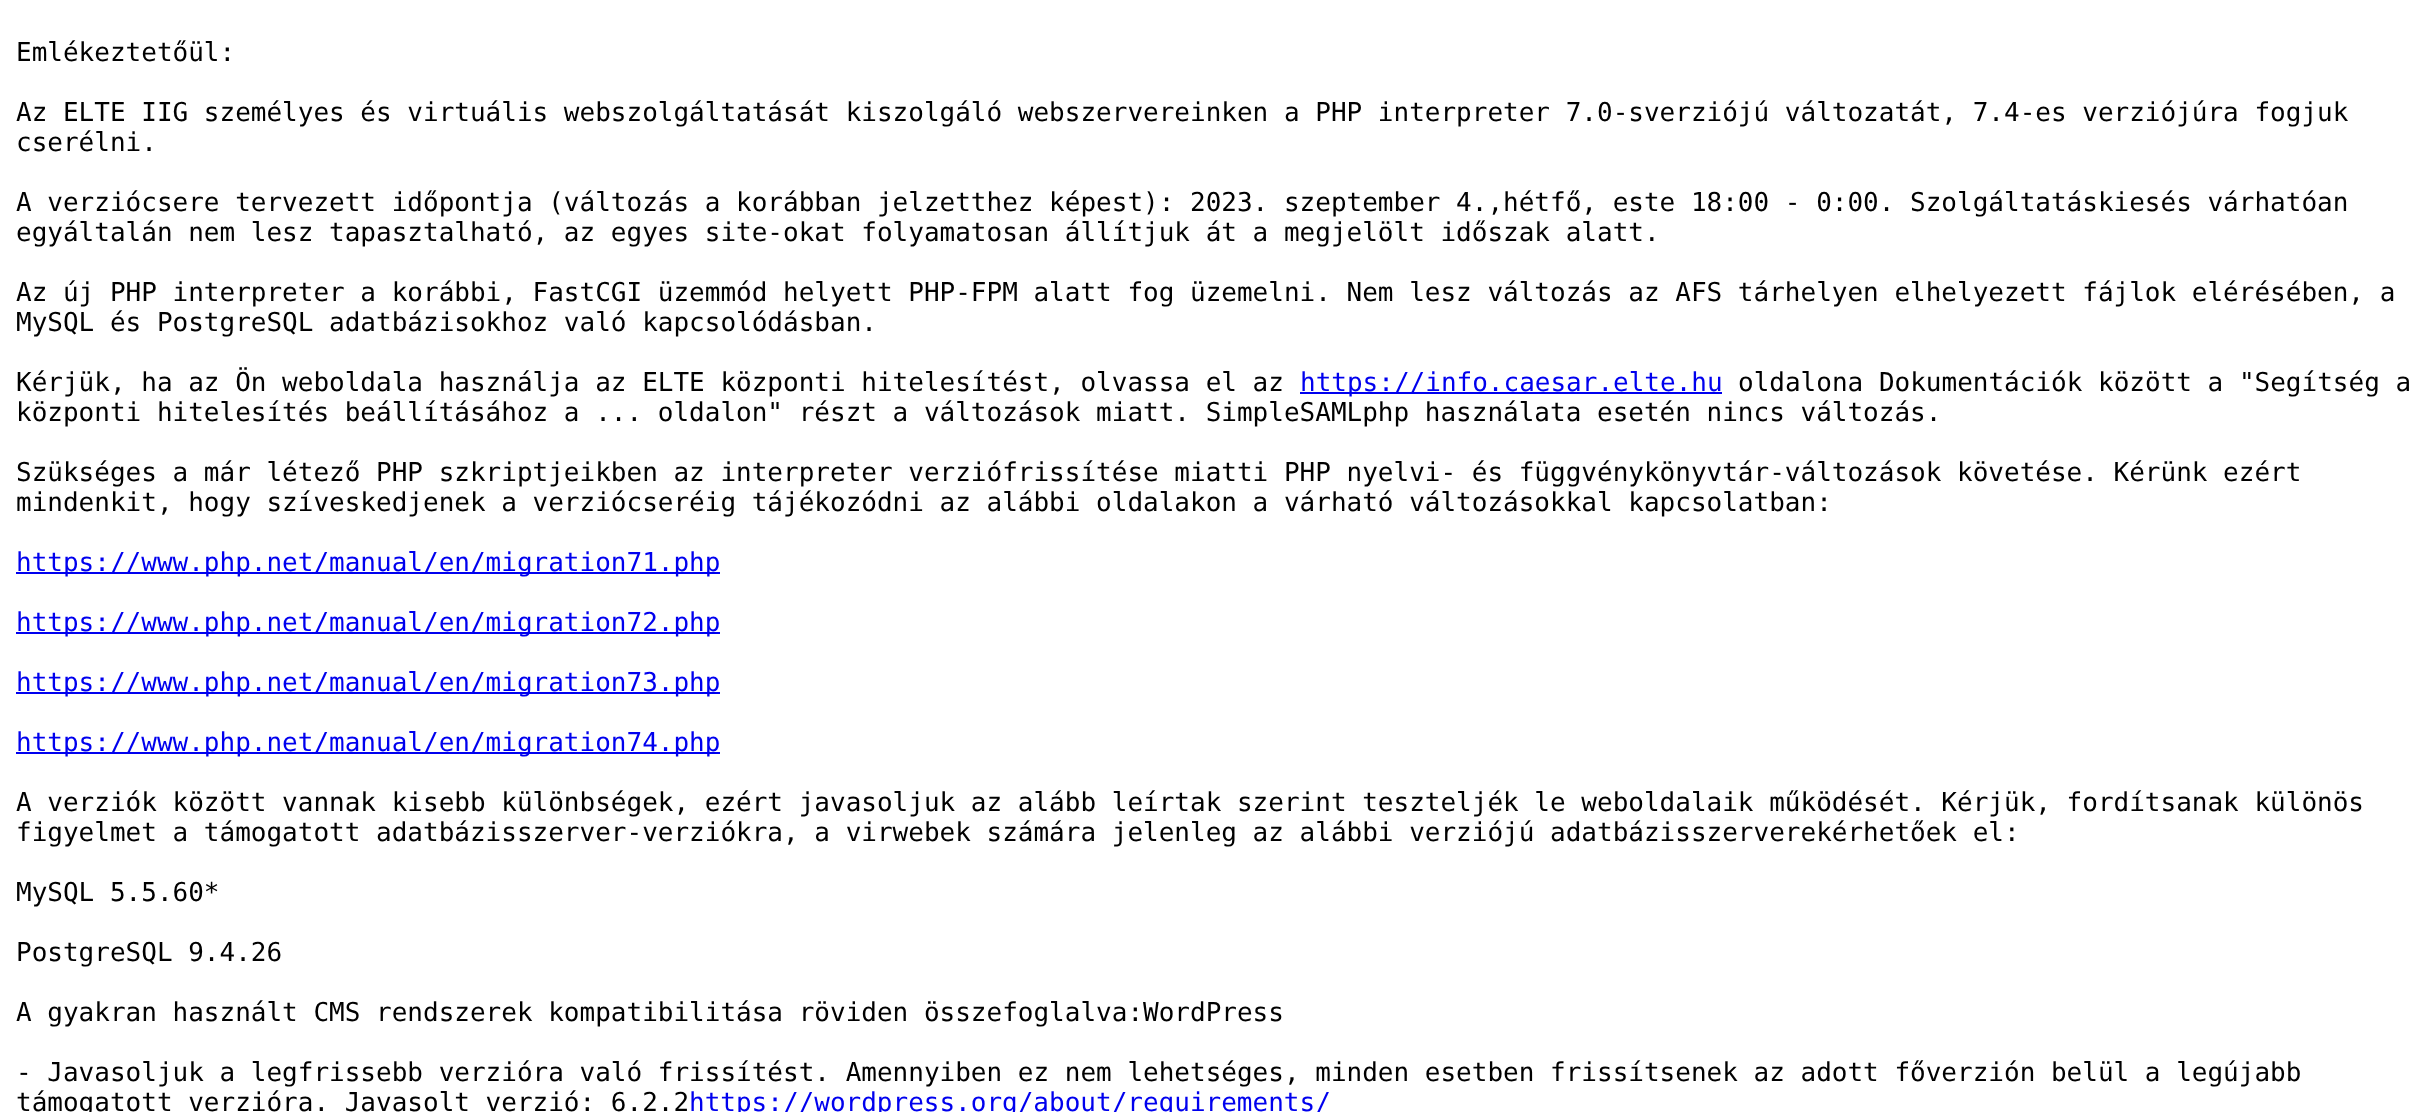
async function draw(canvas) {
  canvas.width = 2428;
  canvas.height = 1112;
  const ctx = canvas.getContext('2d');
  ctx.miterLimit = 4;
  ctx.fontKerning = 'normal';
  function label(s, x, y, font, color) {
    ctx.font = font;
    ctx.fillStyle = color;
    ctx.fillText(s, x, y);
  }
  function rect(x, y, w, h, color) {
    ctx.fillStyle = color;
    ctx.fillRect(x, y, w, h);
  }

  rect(0, 0, 2428, 1112, '#fff');
  label('Emlékeztetőül:', 16, 61, '26px DejaVu Sans Mono', '#000');
  label('Az ELTE IIG személyes és virtuális webszolgáltatását kiszolgáló webszervereinken a PHP interpreter 7.0-sverziójú változatát, 7.4-es verziójúra fogjuk', 16, 121, '26px DejaVu Sans Mono', '#000');
  label('cserélni.', 16, 151, '26px DejaVu Sans Mono', '#000');
  label('A verziócsere tervezett időpontja (változás a korábban jelzetthez képest): 2023. szeptember 4.,hétfő, este 18:00 - 0:00. Szolgáltatáskiesés várhatóan', 16, 211, '26px DejaVu Sans Mono', '#000');
  label('egyáltalán nem lesz tapasztalható, az egyes site-okat folyamatosan állítjuk át a megjelölt időszak alatt.', 16, 241, '26px DejaVu Sans Mono', '#000');
  label('Az új PHP interpreter a korábbi, FastCGI üzemmód helyett PHP-FPM alatt fog üzemelni. Nem lesz változás az AFS tárhelyen elhelyezett fájlok elérésében, a', 16, 301, '26px DejaVu Sans Mono', '#000');
  label('MySQL és PostgreSQL adatbázisokhoz való kapcsolódásban.', 16, 331, '26px DejaVu Sans Mono', '#000');
  label('Kérjük, ha az Ön weboldala használja az ELTE központi hitelesítést, olvassa el az', 16, 391, '26px DejaVu Sans Mono', '#000');
  rect(1300, 392, 422, 2, '#00e');
  label('https://info.caesar.elte.hu', 1300, 391, '26px DejaVu Sans Mono', '#00e');
  label('oldalona Dokumentációk között a "Segítség a', 1738, 391, '26px DejaVu Sans Mono', '#000');
  label('központi hitelesítés beállításához a ... oldalon" részt a változások miatt. SimpleSAMLphp használata esetén nincs változás.', 16, 421, '26px DejaVu Sans Mono', '#000');
  label('Szükséges a már létező PHP szkriptjeikben az interpreter verziófrissítése miatti PHP nyelvi- és függvénykönyvtár-változások követése. Kérünk ezért', 16, 481, '26px DejaVu Sans Mono', '#000');
  label('mindenkit, hogy szíveskedjenek a verziócseréig tájékozódni az alábbi oldalakon a várható változásokkal kapcsolatban:', 16, 511, '26px DejaVu Sans Mono', '#000');
  rect(16, 572, 704, 2, '#00e');
  label('https://www.php.net/manual/en/migration71.php', 16, 571, '26px DejaVu Sans Mono', '#00e');
  rect(16, 632, 704, 2, '#00e');
  label('https://www.php.net/manual/en/migration72.php', 16, 631, '26px DejaVu Sans Mono', '#00e');
  rect(16, 692, 704, 2, '#00e');
  label('https://www.php.net/manual/en/migration73.php', 16, 691, '26px DejaVu Sans Mono', '#00e');
  rect(16, 752, 704, 2, '#00e');
  label('https://www.php.net/manual/en/migration74.php', 16, 751, '26px DejaVu Sans Mono', '#00e');
  label('A verziók között vannak kisebb különbségek, ezért javasoljuk az alább leírtak szerint teszteljék le weboldalaik működését. Kérjük, fordítsanak különös', 16, 811, '26px DejaVu Sans Mono', '#000');
  label('figyelmet a támogatott adatbázisszerver-verziókra, a virwebek számára jelenleg az alábbi verziójú adatbázisszerverekérhetőek el:', 16, 841, '26px DejaVu Sans Mono', '#000');
  label('MySQL 5.5.60*', 16, 901, '26px DejaVu Sans Mono', '#000');
  label('PostgreSQL 9.4.26', 16, 961, '26px DejaVu Sans Mono', '#000');
  label('A gyakran használt CMS rendszerek kompatibilitása röviden összefoglalva:WordPress', 16, 1021, '26px DejaVu Sans Mono', '#000');
  label('- Javasoljuk a legfrissebb verzióra való frissítést. Amennyiben ez nem lehetséges, minden esetben frissítsenek az adott főverzión belül a legújabb', 16, 1081, '26px DejaVu Sans Mono', '#000');
  label('támogatott verzióra. Javasolt verzió: 6.2.2', 16, 1111, '26px DejaVu Sans Mono', '#000');
  label('https://wordpress.org/about/requirements/', 689, 1111, '26px DejaVu Sans Mono', '#00e');
}

draw(document.querySelector('canvas'));
